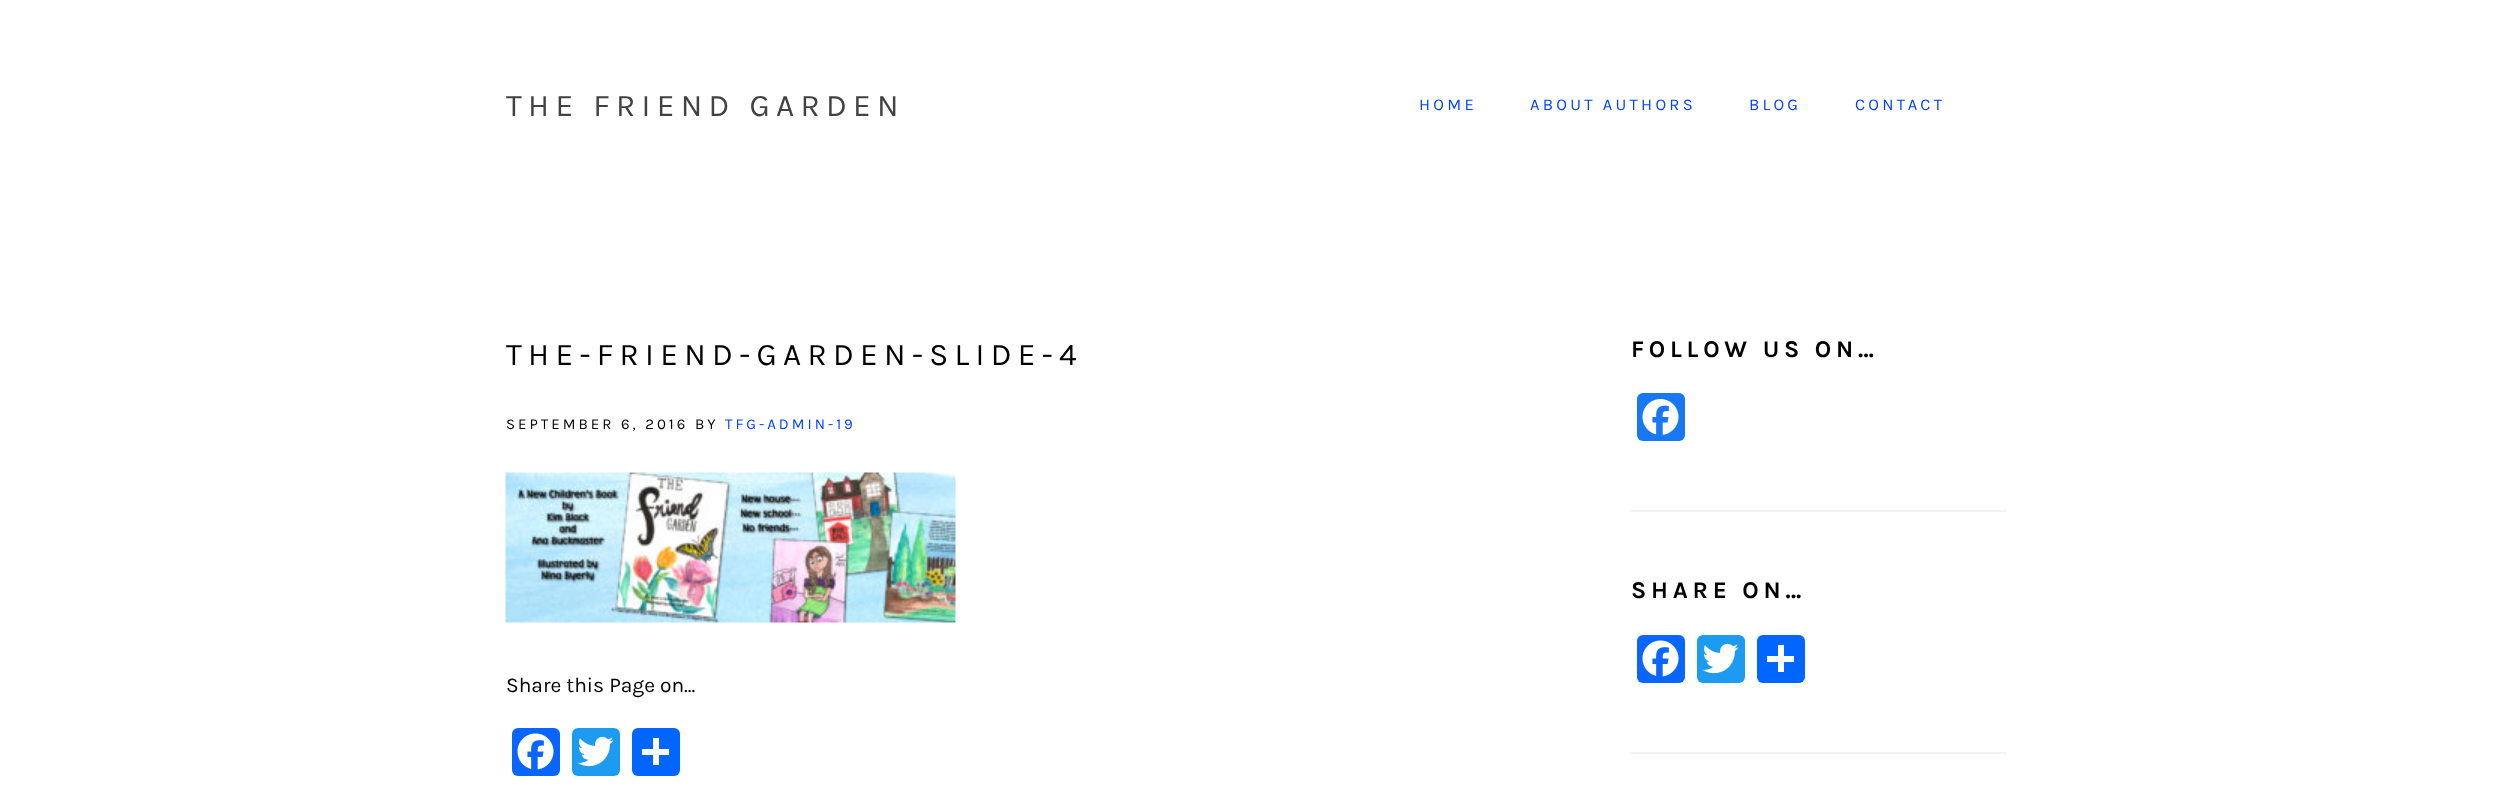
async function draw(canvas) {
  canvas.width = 2511;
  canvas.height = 806;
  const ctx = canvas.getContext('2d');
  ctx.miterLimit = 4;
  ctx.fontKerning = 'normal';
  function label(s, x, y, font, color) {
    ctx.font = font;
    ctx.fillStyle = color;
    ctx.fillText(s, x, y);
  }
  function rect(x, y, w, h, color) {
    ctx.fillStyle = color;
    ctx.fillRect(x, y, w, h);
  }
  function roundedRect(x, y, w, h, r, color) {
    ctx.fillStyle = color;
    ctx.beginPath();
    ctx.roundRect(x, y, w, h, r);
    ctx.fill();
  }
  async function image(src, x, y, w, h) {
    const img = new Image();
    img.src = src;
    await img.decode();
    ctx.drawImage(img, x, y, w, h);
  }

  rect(0, 0, 2511, 806, '#fff');
  ctx.save();
  ctx.beginPath();
  ctx.rect(506, 60, 399, 90);
  ctx.clip();
  ctx.letterSpacing = '6.3px';
  label('THE FRIEND GARDEN', 506, 116, '31.5px Karla', '#424243');
  ctx.restore();
  ctx.letterSpacing = '3.25px';
  label('HOME', 1419, 110, '16.5px Karla', '#0042f9');
  label('ABOUT AUTHORS', 1530, 110, '16.5px Karla', '#0042f9');
  label('BLOG', 1749, 110, '16.5px Karla', '#0042f9');
  label('CONTACT', 1855, 110, '16.5px Karla', '#0042f9');
  ctx.letterSpacing = '6.3px';
  label('THE-FRIEND-GARDEN-SLIDE-4', 506, 365, '31.5px Karla', '#000');
  ctx.letterSpacing = '3px';
  label('SEPTEMBER 6, 2016 BY', 506, 429, '15px Karla', '#000');
  label('TFG-ADMIN-19', 725, 429, '15px Karla', '#0042f9');
  await image('assets/img1.png', 505, 472, 451, 151);
  ctx.letterSpacing = '0px';
  label('Share this Page on...', 506, 692, '21px Karla', '#000');
  roundedRect(512, 728, 48, 48, 6, '#0866ff');
  await image('assets/img2.png', 517, 733, 37, 37);
  roundedRect(572, 728, 48, 48, 6, '#1d9bf0');
  await image('assets/img3.png', 577, 736, 37, 31);
  roundedRect(632, 728, 48, 48, 6, '#0166ff');
  rect(653, 738, 6, 27, '#fff');
  rect(642, 749, 27, 6, '#fff');
  rect(1631, 510, 375, 2, '#f2f2f2');
  ctx.letterSpacing = '4.75px';
  label('FOLLOW US ON…', 1631, 357, 'bold 24px Karla', '#000');
  roundedRect(1637, 393, 48, 48, 6, '#1877f2');
  await image('assets/img4.png', 1642, 399, 37, 36);
  rect(1631, 752, 375, 2, '#f2f2f2');
  label('SHARE ON…', 1631, 598, 'bold 24px Karla', '#000');
  roundedRect(1637, 635, 48, 48, 6, '#0866ff');
  await image('assets/img2.png', 1642, 640, 37, 37);
  roundedRect(1697, 635, 48, 48, 6, '#1d9bf0');
  await image('assets/img3.png', 1702, 643, 37, 31);
  roundedRect(1757, 635, 48, 48, 6, '#0166ff');
  rect(1778, 645, 6, 27, '#fff');
  rect(1767, 656, 27, 6, '#fff');
}

draw(document.querySelector('canvas'));
